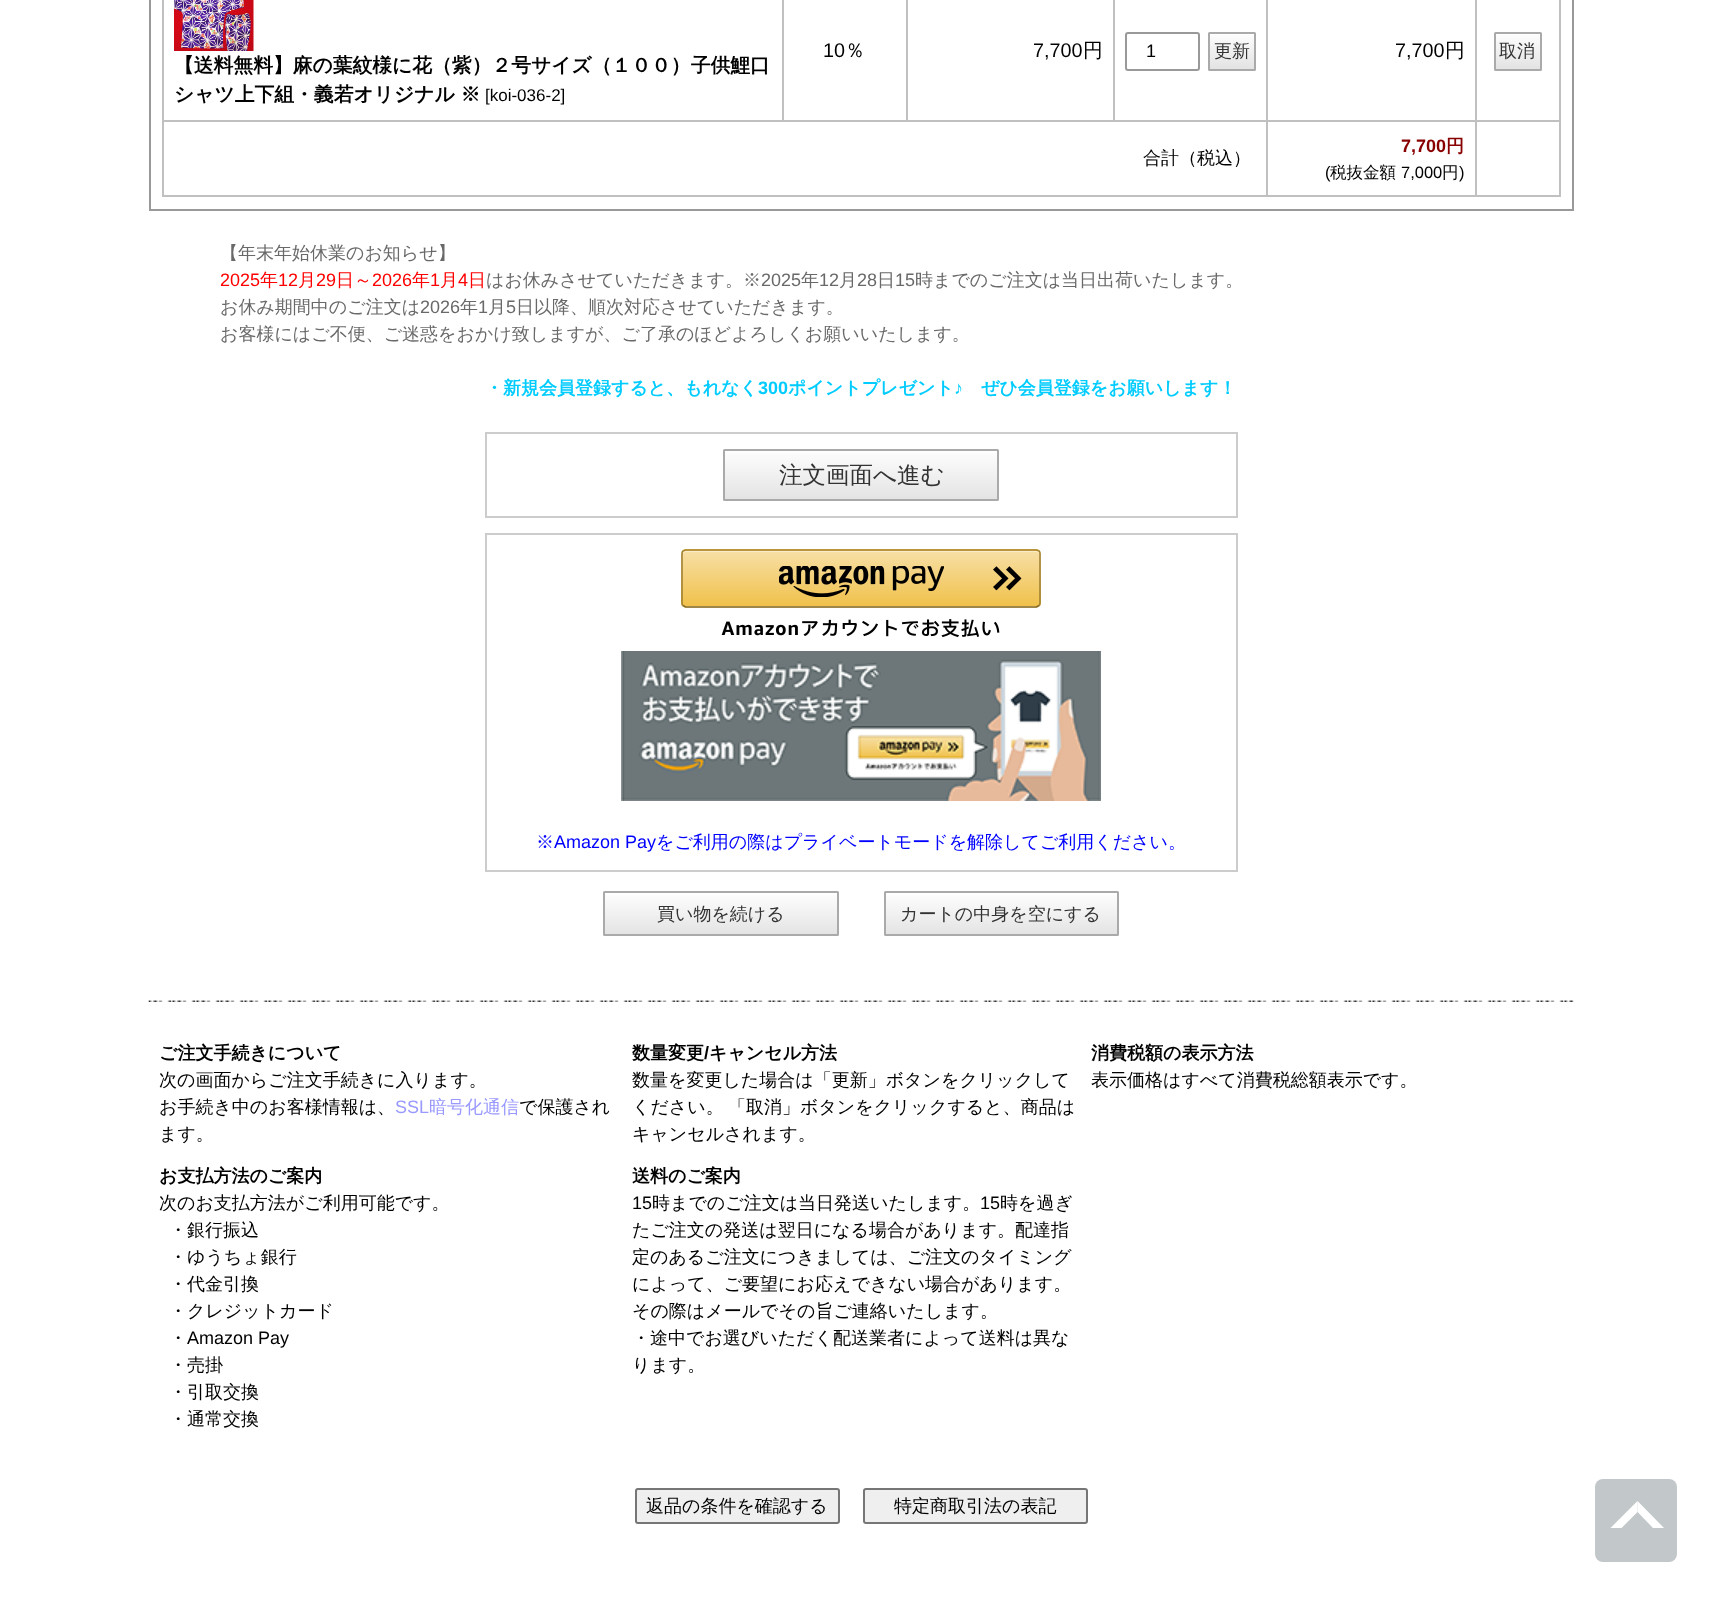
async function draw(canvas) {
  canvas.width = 1722;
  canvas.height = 1606;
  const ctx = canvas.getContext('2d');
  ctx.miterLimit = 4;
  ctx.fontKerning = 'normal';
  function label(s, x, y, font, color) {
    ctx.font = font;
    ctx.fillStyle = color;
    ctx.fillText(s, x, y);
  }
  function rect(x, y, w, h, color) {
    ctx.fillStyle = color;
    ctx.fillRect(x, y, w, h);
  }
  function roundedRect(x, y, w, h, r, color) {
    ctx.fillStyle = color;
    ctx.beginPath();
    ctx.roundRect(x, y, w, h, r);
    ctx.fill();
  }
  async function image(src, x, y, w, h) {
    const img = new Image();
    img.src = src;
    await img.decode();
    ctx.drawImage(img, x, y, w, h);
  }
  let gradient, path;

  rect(0, 0, 1722, 1606, '#fff');
  rect(1572, 0, 2, 210, '#999');
  rect(149, 209, 1425, 2, '#999');
  rect(149, 0, 2, 210, '#999');
  rect(1559, 0, 2, 197, '#c0c0c0');
  rect(162, 195, 1398, 2, '#c0c0c0');
  rect(162, 0, 2, 197, '#c0c0c0');
  rect(1475, 120, 85, 2, '#c0c0c0');
  rect(1475, 120, 2, 77, '#c0c0c0');
  rect(1266, 120, 210, 2, '#c0c0c0');
  rect(1266, 120, 2, 77, '#c0c0c0');
  rect(162, 120, 1106, 2, '#c0c0c0');
  rect(782, 0, 2, 122, '#c0c0c0');
  label('10', 823, 57, '19.8px Liberation Sans', '#000');
  label('％', 845, 57, '500 19.8px WenQuanYi Zen Hei', '#000');
  rect(906, 0, 2, 122, '#c0c0c0');
  label('7,700', 1033, 57, '19.8px Liberation Sans', '#000');
  label('円', 1083, 57, '500 19.8px WenQuanYi Zen Hei', '#000');
  rect(1113, 0, 2, 122, '#c0c0c0');
  ctx.beginPath();
  ctx.roundRect(1126, 33, 73, 37, 2);
  ctx.strokeStyle = '#999';
  ctx.lineWidth = 2;
  ctx.stroke();
  label('1', 1146, 57, '18px Liberation Sans', '#000');
  gradient = ctx.createLinearGradient(1232, 33, 1232, 69);
  gradient.addColorStop(0, '#fefefe');
  gradient.addColorStop(1, '#e3e3e3');
  ctx.fillStyle = gradient;
  ctx.fillRect(1208, 35, 48, 34);
  ctx.beginPath();
  ctx.roundRect(1209, 33, 46, 37, 0.5);
  ctx.strokeStyle = '#aaa';
  ctx.stroke();
  label('更新', 1214, 57, '500 18px WenQuanYi Zen Hei', '#333');
  rect(1266, 0, 2, 122, '#c0c0c0');
  label('7,700', 1395, 57, '19.8px Liberation Sans', '#000');
  label('円', 1445, 57, '500 19.8px WenQuanYi Zen Hei', '#000');
  rect(1475, 0, 2, 122, '#c0c0c0');
  gradient = ctx.createLinearGradient(1518, 33, 1518, 69);
  gradient.addColorStop(0, '#fefefe');
  gradient.addColorStop(1, '#e3e3e3');
  ctx.fillStyle = gradient;
  ctx.fillRect(1494, 35, 48, 34);
  ctx.beginPath();
  ctx.roundRect(1495, 33, 46, 37, 0.5);
  ctx.stroke();
  label('取消', 1499, 57, '500 18px WenQuanYi Zen Hei', '#333');
  await image('assets/img1.png', 174, 0, 80, 51);
  label('【送料無料】麻の葉紋様に花（紫）２号サイズ（１００）子供鯉口', 174, 72, 'bold 19.8px WenQuanYi Zen Hei', '#000');
  label('シャツ上下組・義若オリジナル ※', 174, 101, 'bold 19.8px WenQuanYi Zen Hei', '#000');
  label('[koi-036-2]', 485, 101, '17px Liberation Sans', '#000');
  label('合計（税込）', 1143, 164, '500 18px WenQuanYi Zen Hei', '#000');
  label('7,700', 1401, 152, 'bold 18px Liberation Sans', '#800');
  label('円', 1446, 152, 'bold 18px WenQuanYi Zen Hei', '#800');
  label('(', 1325, 178, '16.5px Liberation Sans', '#000');
  label('税抜金額', 1330, 178, '500 16.5px WenQuanYi Zen Hei', '#000');
  label('7,000', 1401, 178, '16.5px Liberation Sans', '#000');
  label('円', 1442, 178, '500 16.5px WenQuanYi Zen Hei', '#000');
  label(')', 1459, 178, '16.5px Liberation Sans', '#000');
  label('【年末年始休業のお知らせ】', 220, 259, '500 18px WenQuanYi Zen Hei', '#696969');
  label('2025', 220, 286, '18px Liberation Sans', '#f00');
  label('年', 260, 286, '500 18px WenQuanYi Zen Hei', '#f00');
  label('12', 278, 286, '18px Liberation Sans', '#f00');
  label('月', 298, 286, '500 18px WenQuanYi Zen Hei', '#f00');
  label('29', 316, 286, '18px Liberation Sans', '#f00');
  label('日～', 336, 286, '500 18px WenQuanYi Zen Hei', '#f00');
  label('2026', 372, 286, '18px Liberation Sans', '#f00');
  label('年', 412, 286, '500 18px WenQuanYi Zen Hei', '#f00');
  label('1', 430, 286, '18px Liberation Sans', '#f00');
  label('月', 440, 286, '500 18px WenQuanYi Zen Hei', '#f00');
  label('4', 458, 286, '18px Liberation Sans', '#f00');
  label('日', 468, 286, '500 18px WenQuanYi Zen Hei', '#f00');
  label('はお休みさせていただきます。※', 486, 286, '500 18px WenQuanYi Zen Hei', '#696969');
  label('2025', 761, 286, '18px Liberation Sans', '#696969');
  label('年', 801, 286, '500 18px WenQuanYi Zen Hei', '#696969');
  label('12', 819, 286, '18px Liberation Sans', '#696969');
  label('月', 839, 286, '500 18px WenQuanYi Zen Hei', '#696969');
  label('28', 857, 286, '18px Liberation Sans', '#696969');
  label('日', 877, 286, '500 18px WenQuanYi Zen Hei', '#696969');
  label('15', 895, 286, '18px Liberation Sans', '#696969');
  label('時までのご注文は当日出荷いたします。', 915, 286, '500 18px WenQuanYi Zen Hei', '#696969');
  label('お休み期間中のご注文は', 220, 313, '500 18px WenQuanYi Zen Hei', '#696969');
  label('2026', 420, 313, '18px Liberation Sans', '#696969');
  label('年', 460, 313, '500 18px WenQuanYi Zen Hei', '#696969');
  label('1', 478, 313, '18px Liberation Sans', '#696969');
  label('月', 488, 313, '500 18px WenQuanYi Zen Hei', '#696969');
  label('5', 506, 313, '18px Liberation Sans', '#696969');
  label('日以降、順次対応させていただきます。', 516, 313, '500 18px WenQuanYi Zen Hei', '#696969');
  label('お客様にはご不便、ご迷惑をおかけ致しますが、ご了承のほどよろしくお願いいたします。', 220, 340, '500 18px WenQuanYi Zen Hei', '#696969');
  label('・新規会員登録すると、もれなく', 485, 394, 'bold 18px WenQuanYi Zen Hei', '#0cf');
  label('300', 758, 394, 'bold 18px Liberation Sans', '#0cf');
  label('ポイントプレゼント', 788, 394, 'bold 18px WenQuanYi Zen Hei', '#0cf');
  label('♪', 954, 394, 'bold 18px Liberation Sans', '#0cf');
  label('ぜひ会員登録をお願いします！', 981, 394, 'bold 18px WenQuanYi Zen Hei', '#0cf');
  ctx.strokeStyle = '#ccc';
  ctx.strokeRect(486, 433, 751, 84);
  gradient = ctx.createLinearGradient(861, 450, 861, 500);
  gradient.addColorStop(0, '#fefefe');
  gradient.addColorStop(1, '#e3e3e3');
  ctx.fillStyle = gradient;
  ctx.fillRect(723, 453, 276, 47);
  ctx.beginPath();
  ctx.roundRect(724, 450, 274, 50, 0.5);
  ctx.strokeStyle = '#aaa';
  ctx.stroke();
  label('注文画面へ進む', 779, 483, '500 23.5px WenQuanYi Zen Hei', '#333');
  ctx.strokeStyle = '#ccc';
  ctx.strokeRect(486, 534, 751, 337);
  ctx.save();
  ctx.beginPath();
  ctx.roundRect(681, 549, 360, 59, 5);
  ctx.clip();
  gradient = ctx.createLinearGradient(861, 495, 861, 551);
  gradient.addColorStop(0, '#f7dfa5');
  gradient.addColorStop(1, '#f0c14b');
  ctx.fillStyle = gradient;
  ctx.fillRect(681, 549, 360, 2);
  gradient = ctx.createLinearGradient(861, 551, 861, 606);
  gradient.addColorStop(0, '#f7dfa5');
  gradient.addColorStop(1, '#f0c14b');
  ctx.fillStyle = gradient;
  ctx.fillRect(681, 551, 360, 55);
  gradient = ctx.createLinearGradient(861, 606, 861, 662);
  gradient.addColorStop(0, '#f7dfa5');
  gradient.addColorStop(1, '#f0c14b');
  ctx.fillStyle = gradient;
  ctx.fillRect(681, 606, 360, 2);
  ctx.restore();
  ctx.fillStyle = '#faecc8';
  path = new Path2D('M686 552H1036C1038 552 1040 553 1040 555V554C1040 552 1039 551 1037 551H686C685 551 684 552 683 553Z');
  ctx.fill(path);
  path = new Path2D('M683 551L685.5 550H1036.5L1039 551');
  ctx.strokeStyle = '#a88734';
  ctx.lineWidth = 1.5;
  ctx.stroke(path);
  path = new Path2D('M1039 551C1040 551.5 1040 552.5 1040 553.5V603C1040 604 1040 605 1039 605.5');
  ctx.strokeStyle = '#9c7e31';
  ctx.stroke(path);
  path = new Path2D('M1039 605.5L1036.5 607H685.5L683 605.5');
  ctx.strokeStyle = '#846a29';
  ctx.stroke(path);
  path = new Path2D('M683 605.5C682 605 682 604 682 603V553.5C682 552.5 682 551.5 683 551');
  ctx.strokeStyle = '#9c7e31';
  ctx.stroke(path);
  await image('assets/img2.png', 779, 566, 165, 31);
  await image('assets/img3.png', 993, 566, 29, 25);
  await image('assets/img4.png', 721, 619, 279, 19);
  await image('assets/img5.png', 621, 651, 480, 150);
  label('※', 536, 848, '500 18px WenQuanYi Zen Hei', '#00f');
  label('Amazon Pay', 554, 848, '18px Liberation Sans', '#00f');
  label('をご利用の際はプライベートモードを解除してご利用ください。', 656, 848, '500 18px WenQuanYi Zen Hei', '#00f');
  gradient = ctx.createLinearGradient(721, 893, 721, 935);
  gradient.addColorStop(0, '#fefefe');
  gradient.addColorStop(1, '#e3e3e3');
  ctx.fillStyle = gradient;
  ctx.fillRect(603, 895, 236, 40);
  ctx.beginPath();
  ctx.roundRect(604, 892, 234, 43, 0.5);
  ctx.strokeStyle = '#aaa';
  ctx.lineWidth = 2;
  ctx.stroke();
  label('買い物を続ける', 657, 920, '500 18px WenQuanYi Zen Hei', '#333');
  gradient = ctx.createLinearGradient(1001, 893, 1001, 935);
  gradient.addColorStop(0, '#fefefe');
  gradient.addColorStop(1, '#e3e3e3');
  ctx.fillStyle = gradient;
  ctx.fillRect(884, 895, 235, 40);
  ctx.beginPath();
  ctx.roundRect(885, 892, 233, 43, 0.5);
  ctx.stroke();
  label('カートの中身を空にする', 900, 920, '500 18px WenQuanYi Zen Hei', '#333');
  await image('assets/img6.png', 148, 1000, 1426, 2);
  label('ご注文手続きについて', 159, 1059, 'bold 18px WenQuanYi Zen Hei', '#000');
  label('次の画面からご注文手続きに入ります。', 159, 1086, '500 18px WenQuanYi Zen Hei', '#000');
  label('お手続き中のお客様情報は、', 159, 1113, '500 18px WenQuanYi Zen Hei', '#000');
  label('SSL', 395, 1113, '18px Liberation Sans', '#99f');
  label('暗号化通信', 429, 1113, '500 18px WenQuanYi Zen Hei', '#99f');
  label('で保護され', 519, 1113, '500 18px WenQuanYi Zen Hei', '#000');
  label('ます。', 159, 1140, '500 18px WenQuanYi Zen Hei', '#000');
  label('数量変更', 632, 1059, 'bold 18px WenQuanYi Zen Hei', '#000');
  label('/', 704, 1059, 'bold 18px Liberation Sans', '#000');
  label('キャンセル方法', 709, 1059, 'bold 18px WenQuanYi Zen Hei', '#000');
  label('数量を変更した場合は「更新」ボタンをクリックして', 632, 1086, '500 18px WenQuanYi Zen Hei', '#000');
  label('ください。', 632, 1113, '500 18px WenQuanYi Zen Hei', '#000');
  label('「取消」ボタンをクリックすると、商品は', 728, 1113, '500 18px WenQuanYi Zen Hei', '#000');
  label('キャンセルされます。', 632, 1140, '500 18px WenQuanYi Zen Hei', '#000');
  label('消費税額の表示方法', 1091, 1059, 'bold 18px WenQuanYi Zen Hei', '#000');
  label('表示価格はすべて消費税総額表示です。', 1091, 1086, '500 18px WenQuanYi Zen Hei', '#000');
  label('お支払方法のご案内', 159, 1182, 'bold 18px WenQuanYi Zen Hei', '#000');
  label('次のお支払方法がご利用可能です。', 159, 1209, '500 18px WenQuanYi Zen Hei', '#000');
  label('・銀行振込', 169, 1236, '500 18px WenQuanYi Zen Hei', '#000');
  label('・ゆうちょ銀行', 169, 1263, '500 18px WenQuanYi Zen Hei', '#000');
  label('・代金引換', 169, 1290, '500 18px WenQuanYi Zen Hei', '#000');
  label('・クレジットカード', 169, 1317, '500 18px WenQuanYi Zen Hei', '#000');
  label('・', 169, 1344, '500 18px WenQuanYi Zen Hei', '#000');
  label('Amazon Pay', 187, 1344, '18px Liberation Sans', '#000');
  label('・売掛', 169, 1371, '500 18px WenQuanYi Zen Hei', '#000');
  label('・引取交換', 169, 1398, '500 18px WenQuanYi Zen Hei', '#000');
  label('・通常交換', 169, 1425, '500 18px WenQuanYi Zen Hei', '#000');
  label('送料のご案内', 632, 1182, 'bold 18px WenQuanYi Zen Hei', '#000');
  label('15', 632, 1209, '18px Liberation Sans', '#000');
  label('時までのご注文は当日発送いたします。', 652, 1209, '500 18px WenQuanYi Zen Hei', '#000');
  label('15', 980, 1209, '18px Liberation Sans', '#000');
  label('時を過ぎ', 1000, 1209, '500 18px WenQuanYi Zen Hei', '#000');
  label('たご注文の発送は翌日になる場合があります。配達指', 632, 1236, '500 18px WenQuanYi Zen Hei', '#000');
  label('定のあるご注文につきましては、ご注文のタイミング', 632, 1263, '500 18px WenQuanYi Zen Hei', '#000');
  label('によって、ご要望にお応えできない場合があります。', 632, 1290, '500 18px WenQuanYi Zen Hei', '#000');
  label('その際はメールでその旨ご連絡いたします。', 632, 1317, '500 18px WenQuanYi Zen Hei', '#000');
  label('・途中でお選びいただく配送業者によって送料は異な', 632, 1344, '500 18px WenQuanYi Zen Hei', '#000');
  label('ります。', 632, 1371, '500 18px WenQuanYi Zen Hei', '#000');
  ctx.fillStyle = '#efefef';
  ctx.beginPath();
  ctx.roundRect(636, 1489, 203, 34, 2);
  ctx.fill();
  ctx.strokeStyle = '#767676';
  ctx.stroke();
  label('返品の条件を確認する', 646, 1512, '500 18px WenQuanYi Zen Hei', '#000');
  ctx.fillStyle = '#efefef';
  ctx.beginPath();
  ctx.roundRect(864, 1489, 223, 34, 2);
  ctx.fill();
  ctx.stroke();
  label('特定商取引法の表記', 894, 1512, '500 18px WenQuanYi Zen Hei', '#000');
  roundedRect(1595, 1479, 82, 83, 8, '#c2c7c9');
  ctx.fillStyle = '#fff';
  path = new Path2D('M1637.5 1501L1664 1528H1653L1637.5 1512Z');
  ctx.fill(path);
  path = new Path2D('M1610.5 1528L1637.5 1501V1512L1621.5 1528Z');
  ctx.fill(path);
}

draw(document.querySelector('canvas'));
